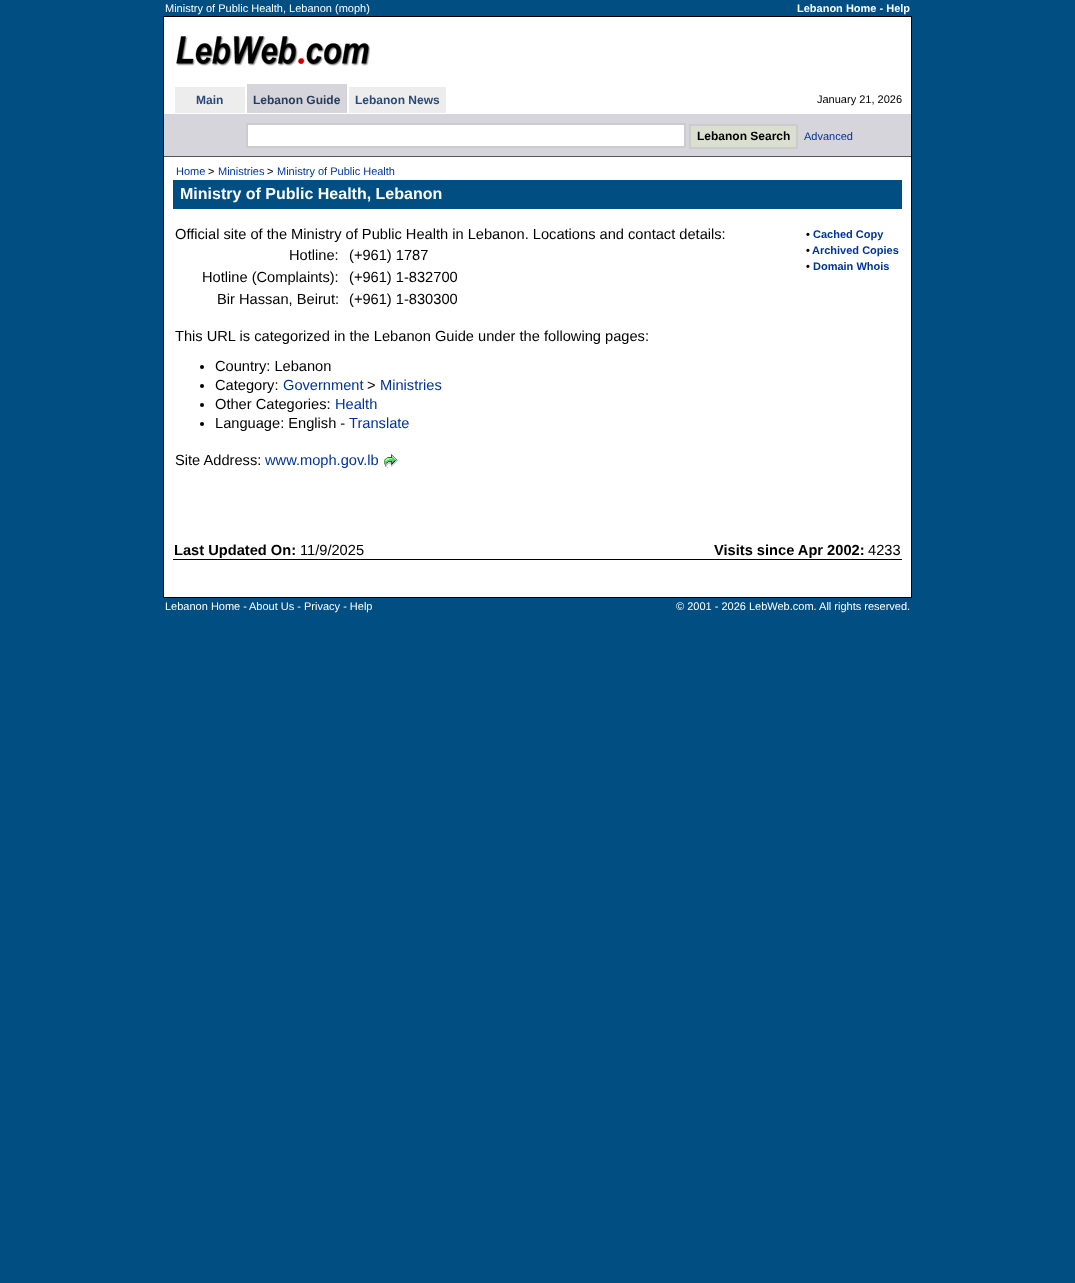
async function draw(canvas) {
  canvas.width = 1075;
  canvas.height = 1283;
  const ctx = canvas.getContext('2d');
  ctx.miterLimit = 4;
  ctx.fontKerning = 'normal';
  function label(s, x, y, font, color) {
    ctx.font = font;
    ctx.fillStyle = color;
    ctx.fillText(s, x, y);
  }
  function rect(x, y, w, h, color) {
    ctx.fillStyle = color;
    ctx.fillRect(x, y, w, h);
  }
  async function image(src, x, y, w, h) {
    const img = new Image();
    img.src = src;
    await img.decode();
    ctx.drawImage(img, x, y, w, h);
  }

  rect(0, 0, 1075, 1283, '#004e82');
  label('Ministry of Public Health, Lebanon (moph)', 165, 12, '11px Liberation Sans', '#fff');
  label('Lebanon Home - Help', 797, 12, 'bold 11px Liberation Sans', '#fff');
  ctx.strokeStyle = '#000';
  ctx.strokeRect(163.5, 16.5, 748, 581);
  rect(164, 17, 747, 97, '#fff');
  await image('assets/img1.png', 176, 36, 194, 30);
  rect(247, 84, 100, 29, '#d5d5db');
  rect(175, 87, 70, 26, '#ededed');
  label('Main', 196, 104, 'bold 12px Liberation Sans', '#294a76');
  label('Lebanon Guide', 253, 104, 'bold 12px Liberation Sans', '#263c5e');
  rect(349, 87, 97, 26, '#ededed');
  label('Lebanon News', 355, 104, 'bold 12px Liberation Sans', '#294a76');
  label('January 21, 2026', 817, 103, '11px Liberation Sans', '#000');
  rect(164, 114, 747, 42, '#d5d5db');
  ctx.fillStyle = '#fff';
  ctx.beginPath();
  ctx.rect(247, 124, 438, 23);
  ctx.fill();
  ctx.strokeStyle = '#ccc';
  ctx.lineWidth = 2;
  ctx.stroke();
  ctx.fillStyle = '#dadfd0';
  ctx.beginPath();
  ctx.rect(690, 125, 107, 23);
  ctx.fill();
  ctx.stroke();
  label('Lebanon Search', 697, 140, 'bold 12px Liberation Sans', '#000');
  label('Advanced', 804, 140, '11px Liberation Sans', '#039');
  rect(164, 156, 747, 1, '#555564');
  rect(164, 157, 747, 440, '#fff');
  label('Home', 176, 175, '11px Liberation Sans', '#039');
  label('>', 208, 175, '11px Liberation Sans', '#000');
  label('Ministries', 218, 175, '11px Liberation Sans', '#039');
  label('>', 267, 175, '11px Liberation Sans', '#000');
  label('Ministry of Public Health', 277, 175, '11px Liberation Sans', '#039');
  rect(173, 180, 729, 29, '#004e82');
  label('Ministry of Public Health, Lebanon', 180, 199, 'bold 16px Liberation Sans', '#fff');
  label('Official site of the Ministry of Public Health in Lebanon. Locations and contact details:', 175, 239, '14.65px Liberation Sans', '#000');
  label('Hotline:', 289, 260, '14.65px Liberation Sans', '#000');
  label('(+961) 1787', 349, 260, '14.65px Liberation Sans', '#000');
  label('Hotline (Complaints):', 202, 282, '14.65px Liberation Sans', '#000');
  label('(+961) 1-832700', 349, 282, '14.65px Liberation Sans', '#000');
  label('Bir Hassan, Beirut:', 217, 304, '14.65px Liberation Sans', '#000');
  label('(+961) 1-830300', 349, 304, '14.65px Liberation Sans', '#000');
  label('This URL is categorized in the Lebanon Guide under the following pages:', 175, 341, '14.65px Liberation Sans', '#000');
  ctx.beginPath();
  ctx.arc(202, 367, 2, 0, 2 * Math.PI);
  ctx.fill();
  label('Country: Lebanon', 215, 371, '14.65px Liberation Sans', '#000');
  ctx.beginPath();
  ctx.arc(202, 386, 2, 0, 2 * Math.PI);
  ctx.fill();
  label('Category:', 215, 390, '14.65px Liberation Sans', '#000');
  label('Government', 283, 390, '14.65px Liberation Sans', '#039');
  label('>', 367, 390, '14.65px Liberation Sans', '#000');
  label('Ministries', 380, 390, '14.65px Liberation Sans', '#039');
  ctx.fillStyle = '#000';
  ctx.beginPath();
  ctx.arc(202, 405, 2, 0, 2 * Math.PI);
  ctx.fill();
  label('Other Categories:', 215, 409, '14.65px Liberation Sans', '#000');
  label('Health', 335, 409, '14.65px Liberation Sans', '#039');
  ctx.fillStyle = '#000';
  ctx.beginPath();
  ctx.arc(202, 424, 2, 0, 2 * Math.PI);
  ctx.fill();
  label('Language: English -', 215, 428, '14.65px Liberation Sans', '#000');
  label('Translate', 349, 428, '14.65px Liberation Sans', '#039');
  label('Site Address:', 175, 465, '14.65px Liberation Sans', '#000');
  label('www.moph.gov.lb', 265, 465, '14.65px Liberation Sans', '#039');
  await image('assets/img2.png', 384, 454, 14, 14);
  label('•', 806, 238, 'bold 11px Liberation Sans', '#000');
  label('Cached Copy', 813, 238, 'bold 11px Liberation Sans', '#039');
  label('•', 806, 254, 'bold 11px Liberation Sans', '#000');
  label('Archived Copies', 812, 254, 'bold 11px Liberation Sans', '#039');
  label('•', 806, 270, 'bold 11px Liberation Sans', '#000');
  label('Domain Whois', 813, 270, 'bold 11px Liberation Sans', '#039');
  label('Last Updated On:', 174, 555, 'bold 14.65px Liberation Sans', '#000');
  label('11/9/2025', 300, 555, '14.65px Liberation Sans', '#000');
  label('Visits since Apr 2002:', 714, 555, 'bold 14.65px Liberation Sans', '#000');
  label('4233', 868, 555, '14.65px Liberation Sans', '#000');
  rect(173, 559, 729, 1, '#000');
  label('Lebanon Home -', 165, 610, '11px Liberation Sans', '#fff');
  label('About Us - Privacy - Help', 249, 610, '11px Liberation Sans', '#fff');
  label('© 2001 - 2026 LebWeb.com. All rights reserved.', 676, 610, '11px Liberation Sans', '#fff');
}

draw(document.querySelector('canvas'));
